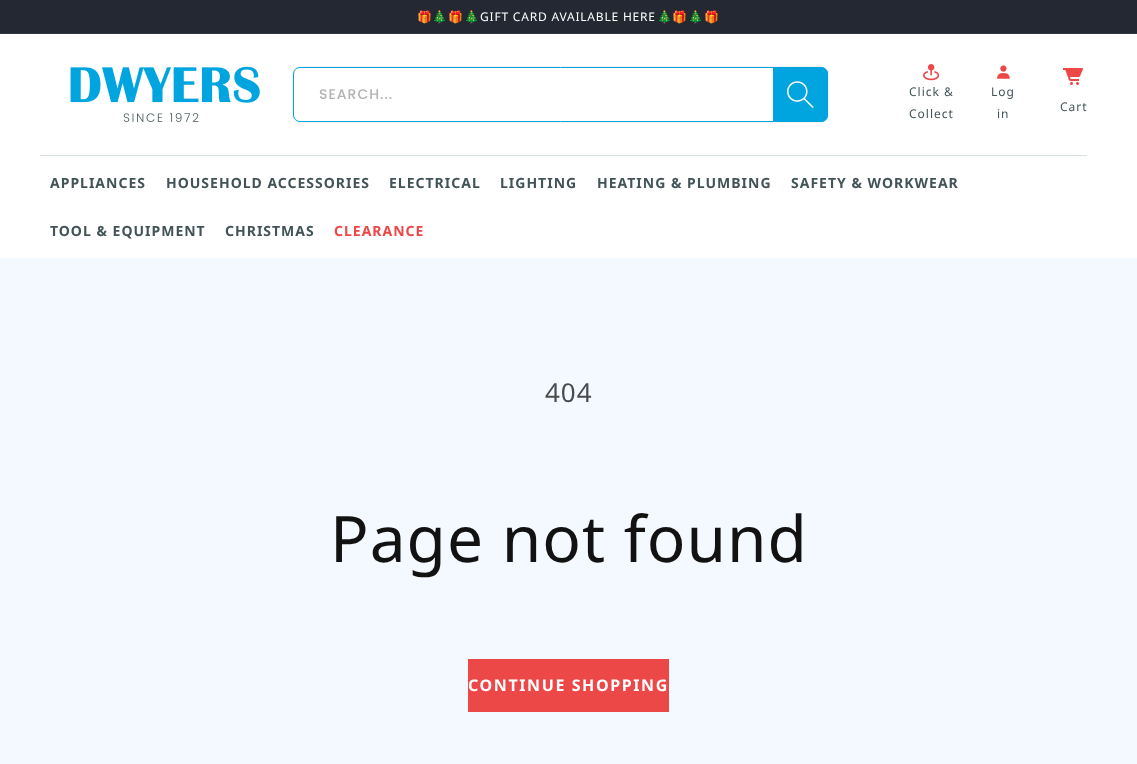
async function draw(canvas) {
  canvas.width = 1137;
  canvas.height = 764;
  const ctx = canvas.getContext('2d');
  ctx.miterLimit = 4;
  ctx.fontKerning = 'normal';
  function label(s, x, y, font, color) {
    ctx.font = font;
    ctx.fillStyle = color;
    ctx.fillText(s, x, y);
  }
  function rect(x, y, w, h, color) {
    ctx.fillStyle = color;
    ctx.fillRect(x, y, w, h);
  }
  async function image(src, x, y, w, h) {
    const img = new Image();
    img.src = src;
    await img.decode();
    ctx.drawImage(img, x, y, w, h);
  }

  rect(0, 0, 1137, 764, '#f4f9ff');
  rect(0, 0, 1137, 33, '#242833');
  rect(0, 33, 1137, 1, '#363943');
  ctx.letterSpacing = '0.8px';
  label('🎁🎄🎁🎄', 417, 21, '12px Noto Color Emoji', '#fff');
  label('GIFT CARD AVAILABLE HERE', 480, 21, '12px Noto Sans', '#fff');
  label('🎄🎁🎄🎁', 657, 21, '12px Noto Color Emoji', '#fff');
  rect(0, 34, 1137, 224, '#fff');
  await image('assets/img1.png', 70, 66, 190, 56);
  ctx.beginPath();
  ctx.roundRect(292.5, 66.5, 536, 56, 7.5);
  ctx.strokeStyle = '#f2f2f2';
  ctx.stroke();
  ctx.beginPath();
  ctx.roundRect(293.5, 67.5, 534, 54, 6.5);
  ctx.fill();
  ctx.strokeStyle = '#00a4df';
  ctx.stroke();
  ctx.letterSpacing = '1px';
  label('SEARCH...', 319, 99, '500 14px Poppins', '#b3b3b3');
  ctx.fillStyle = '#00a4df';
  ctx.beginPath();
  ctx.roundRect(773, 67, 55, 55, [0, 7, 7, 0]);
  ctx.fill();
  await image('assets/img2.png', 787, 81, 27, 27);
  await image('assets/img3.png', 923, 64, 16, 17);
  label('Click &', 909, 96, '12px Noto Sans', '#435458');
  label('Collect', 909, 118, '12px Noto Sans', '#435458');
  await image('assets/img4.png', 997, 65, 13, 14);
  label('Log', 991, 96, '12px Noto Sans', '#435458');
  label('in', 997, 118, '12px Noto Sans', '#435458');
  await image('assets/img5.png', 1063, 68, 20, 17);
  label('Cart', 1060, 111, '12px Noto Sans', '#435458');
  rect(40, 155, 1047, 1, '#d7dfe1');
  label('APPLIANCES', 50, 188, 'bold 14px Noto Sans', '#435458');
  label('HOUSEHOLD ACCESSORIES', 166, 188, 'bold 14px Noto Sans', '#435458');
  label('ELECTRICAL', 389, 188, 'bold 14px Noto Sans', '#435458');
  label('LIGHTING', 500, 188, 'bold 14px Noto Sans', '#435458');
  label('HEATING & PLUMBING', 597, 188, 'bold 14px Noto Sans', '#435458');
  label('SAFETY & WORKWEAR', 791, 188, 'bold 14px Noto Sans', '#435458');
  label('TOOL & EQUIPMENT', 50, 236, 'bold 14px Noto Sans', '#435458');
  label('CHRISTMAS', 225, 236, 'bold 14px Noto Sans', '#435458');
  label('CLEARANCE', 334, 236, 'bold 14px Noto Sans', '#ec4848');
  label('404', 545, 402, '26px Noto Sans', '#4b4c4d');
  label('Page not found', 330, 562, '64px Noto Sans', '#121212');
  rect(468, 659, 201, 53, '#ec4848');
  ctx.letterSpacing = '1.6px';
  label('CONTINUE SHOPPING', 468, 691, 'bold 16px Noto Sans', '#fff');
}

draw(document.querySelector('canvas'));
